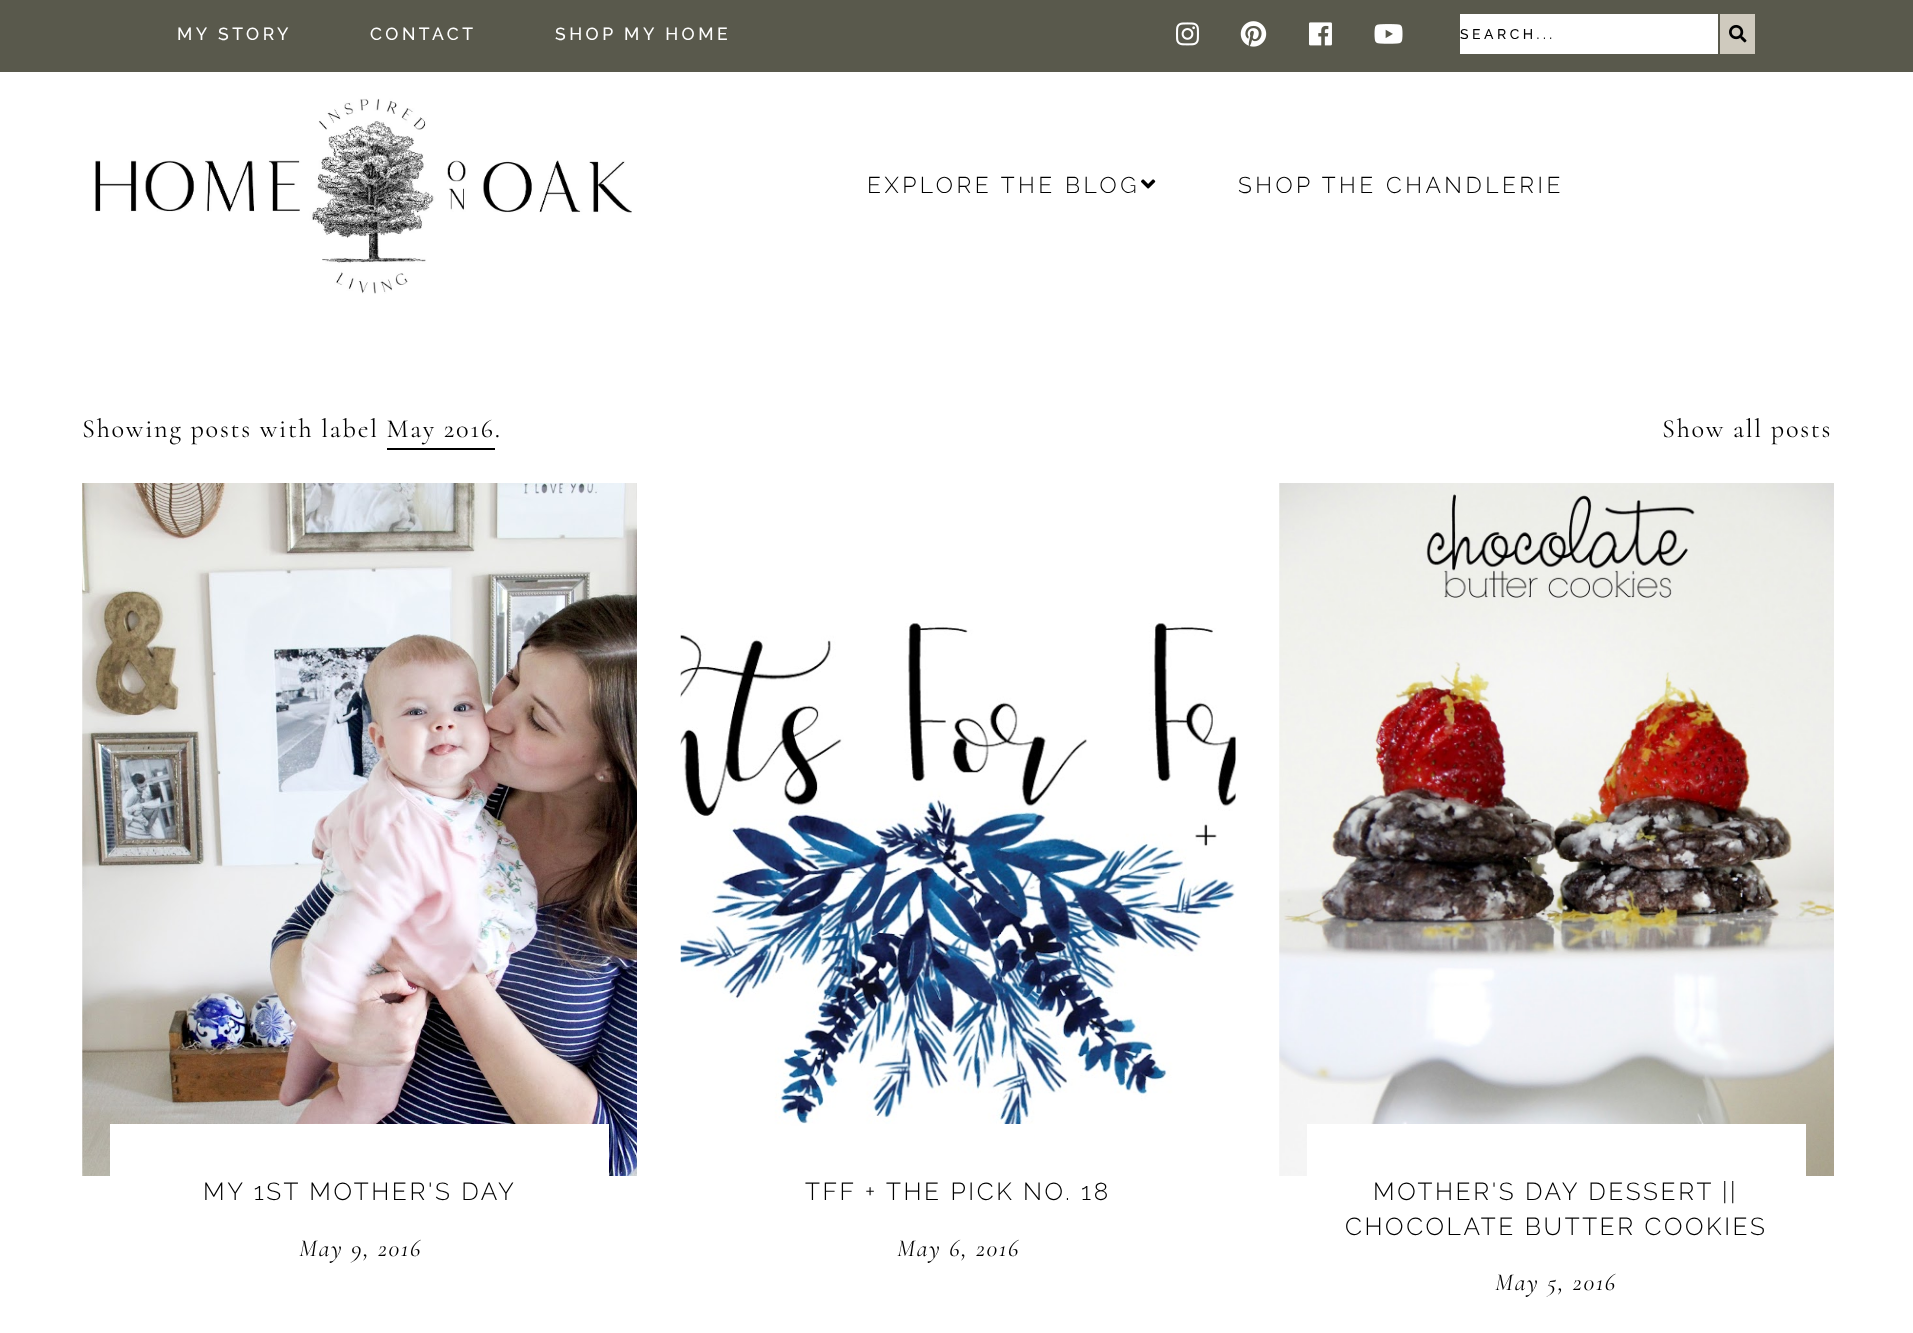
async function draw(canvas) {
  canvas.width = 1913;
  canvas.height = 1333;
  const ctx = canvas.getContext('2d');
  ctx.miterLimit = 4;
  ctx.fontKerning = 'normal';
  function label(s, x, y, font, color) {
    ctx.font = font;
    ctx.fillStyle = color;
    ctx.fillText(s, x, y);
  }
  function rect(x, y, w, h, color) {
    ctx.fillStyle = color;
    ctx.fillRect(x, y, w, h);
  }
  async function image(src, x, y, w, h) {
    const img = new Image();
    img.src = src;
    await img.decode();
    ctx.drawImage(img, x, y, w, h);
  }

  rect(0, 0, 1913, 1333, '#fff');
  rect(0, 0, 1913, 72, '#59594c');
  ctx.letterSpacing = '3.5px';
  label('MY STORY', 177, 40, '500 17.5px Raleway', '#fff');
  label('CONTACT', 370, 40, '500 17.5px Raleway', '#fff');
  label('SHOP MY HOME', 555, 40, '500 17.5px Raleway', '#fff');
  await image('assets/img1.png', 1176, 22, 23, 24);
  await image('assets/img2.png', 1240, 21, 27, 26);
  await image('assets/img3.png', 1309, 22, 23, 24);
  await image('assets/img4.png', 1374, 24, 29, 20);
  rect(1460, 14, 258, 40, '#fff');
  label('SEARCH...', 1460, 39, '500 14px Raleway', '#000');
  rect(1720, 14, 35, 40, '#cfcabe');
  await image('assets/img5.png', 1729, 24, 18, 19);
  await image('assets/img6.png', 95, 98, 537, 196);
  label('EXPLORE THE BLOG', 867, 193, '300 22.75px Raleway', '#000');
  await image('assets/img7.png', 1141, 179, 15, 10);
  label('SHOP THE CHANDLERIE', 1238, 193, '300 22.75px Raleway', '#000');
  ctx.letterSpacing = '1.75px';
  label('Showing posts with label May 2016.', 82, 437, '26.25px Cormorant', '#000');
  label('Show all posts', 1662, 437, '26.25px Cormorant', '#000');
  rect(387, 448, 108, 2, '#000');
  await image('assets/img8.png', 82, 483, 555, 693);
  rect(110, 1124, 499, 52, '#fff');
  ctx.letterSpacing = '2.6px';
  label('MY 1ST MOTHER\'S DAY', 203, 1200, '300 24.5px Raleway', '#000');
  ctx.letterSpacing = '1.75px';
  label('May 9, 2016', 299, 1256, 'italic 24.5px Cormorant', '#000');
  await image('assets/img9.png', 680, 623, 556, 516);
  rect(802, 1124, 232, 15, '#fff');
  ctx.letterSpacing = '2.6px';
  label('TFF + THE PICK NO. 18', 805, 1200, '300 24.5px Raleway', '#000');
  ctx.letterSpacing = '1.75px';
  label('May 6, 2016', 897, 1256, 'italic 24.5px Cormorant', '#000');
  await image('assets/img10.png', 1279, 483, 555, 693);
  rect(1307, 1124, 499, 52, '#fff');
  ctx.letterSpacing = '2.6px';
  label('MOTHER\'S DAY DESSERT ||', 1373, 1200, '300 24.5px Raleway', '#000');
  label('CHOCOLATE BUTTER COOKIES', 1345, 1235, '300 24.5px Raleway', '#000');
  ctx.letterSpacing = '1.75px';
  label('May 5, 2016', 1495, 1290, 'italic 24.5px Cormorant', '#000');
}

draw(document.querySelector('canvas'));
